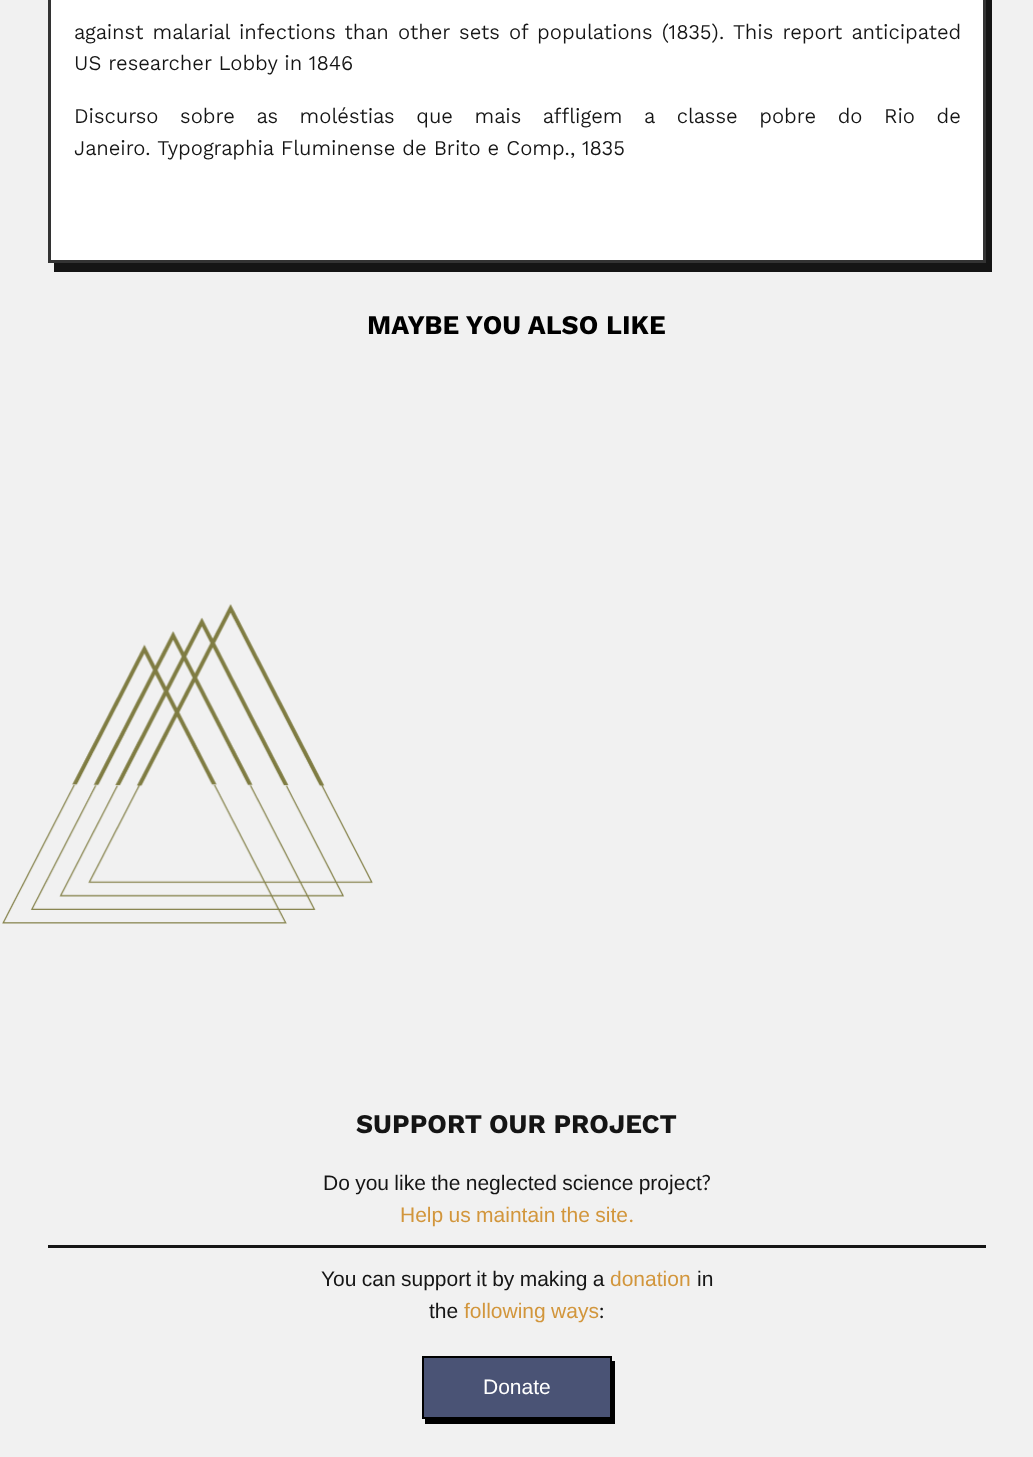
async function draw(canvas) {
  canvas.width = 1033;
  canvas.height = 1457;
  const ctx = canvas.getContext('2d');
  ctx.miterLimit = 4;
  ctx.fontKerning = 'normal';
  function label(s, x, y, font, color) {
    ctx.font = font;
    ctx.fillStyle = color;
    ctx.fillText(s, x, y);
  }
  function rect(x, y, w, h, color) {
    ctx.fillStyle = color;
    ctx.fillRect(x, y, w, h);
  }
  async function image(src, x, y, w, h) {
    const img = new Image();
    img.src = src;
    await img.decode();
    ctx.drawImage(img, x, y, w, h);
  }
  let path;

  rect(0, 0, 1033, 1457, '#f1f1f1');
  ctx.fillStyle = '#151515';
  path = new Path2D('M54 262V272H992V-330H986V262Z');
  ctx.fill(path);
  ctx.fillStyle = '#fff';
  ctx.beginPath();
  ctx.rect(49.5, -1.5, 935, 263);
  ctx.fill();
  ctx.strokeStyle = '#333';
  ctx.lineWidth = 3;
  ctx.stroke();
  ctx.wordSpacing = '2.25px';
  label('against malarial infections than other sets of populations (1835). This report anticipated', 74, 39, '21px Kantumruy Pro', '#151515');
  ctx.wordSpacing = '0px';
  label('US researcher Lobby in 1846', 74, 70, '21px Kantumruy Pro', '#151515');
  ctx.wordSpacing = '14.6px';
  label('Discurso sobre as moléstias que mais affligem a classe pobre do Rio de', 74, 123, '21px Kantumruy Pro', '#151515');
  ctx.wordSpacing = '0px';
  label('Janeiro. Typographia Fluminense de Brito e Comp., 1835', 74, 155, '21px Kantumruy Pro', '#151515');
  label('MAYBE YOU ALSO LIKE', 367, 334, 'bold 27px Kantumruy Pro', '#000');
  await image('assets/img1.png', 2, 604, 371, 320);
  label('SUPPORT OUR PROJECT', 356, 1133, 'bold 27px Kantumruy Pro', '#151515');
  rect(48, 1245, 938, 3, '#151515');
  ctx.wordSpacing = '-0.5px';
  label('Do you like the neglected science project', 323, 1190, '21px Liberation Sans', '#151515');
  ctx.wordSpacing = '0px';
  label('?', 702, 1190, '21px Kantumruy', '#151515');
  ctx.wordSpacing = '-0.5px';
  label('Help us maintain the site', 400, 1222, '21px Liberation Sans', '#d2963c');
  ctx.wordSpacing = '0px';
  label('.', 629, 1222, '21px Kantumruy', '#d2963c');
  ctx.wordSpacing = '-0.5px';
  label('You can support it by making a', 321, 1286, '21px Liberation Sans', '#151515');
  ctx.wordSpacing = '0px';
  label('donation', 610, 1286, '21px Liberation Sans', '#d2963c');
  label('in', 697, 1286, '21px Liberation Sans', '#151515');
  label('the', 429, 1318, '21px Liberation Sans', '#151515');
  ctx.wordSpacing = '-0.5px';
  label('following ways', 464, 1318, '21px Liberation Sans', '#d2963c');
  ctx.wordSpacing = '0px';
  label(':', 599, 1318, '21px Kantumruy', '#151515');
  ctx.fillStyle = '#000';
  path = new Path2D('M425 1419V1424H615V1361H612V1419Z');
  ctx.fill(path);
  ctx.fillStyle = '#4a5375';
  ctx.beginPath();
  ctx.rect(423, 1357, 188, 61);
  ctx.fill();
  ctx.strokeStyle = '#000';
  ctx.lineWidth = 2;
  ctx.stroke();
  label('Donate', 483, 1394, '21px Liberation Sans', '#fff');
}

draw(document.querySelector('canvas'));
